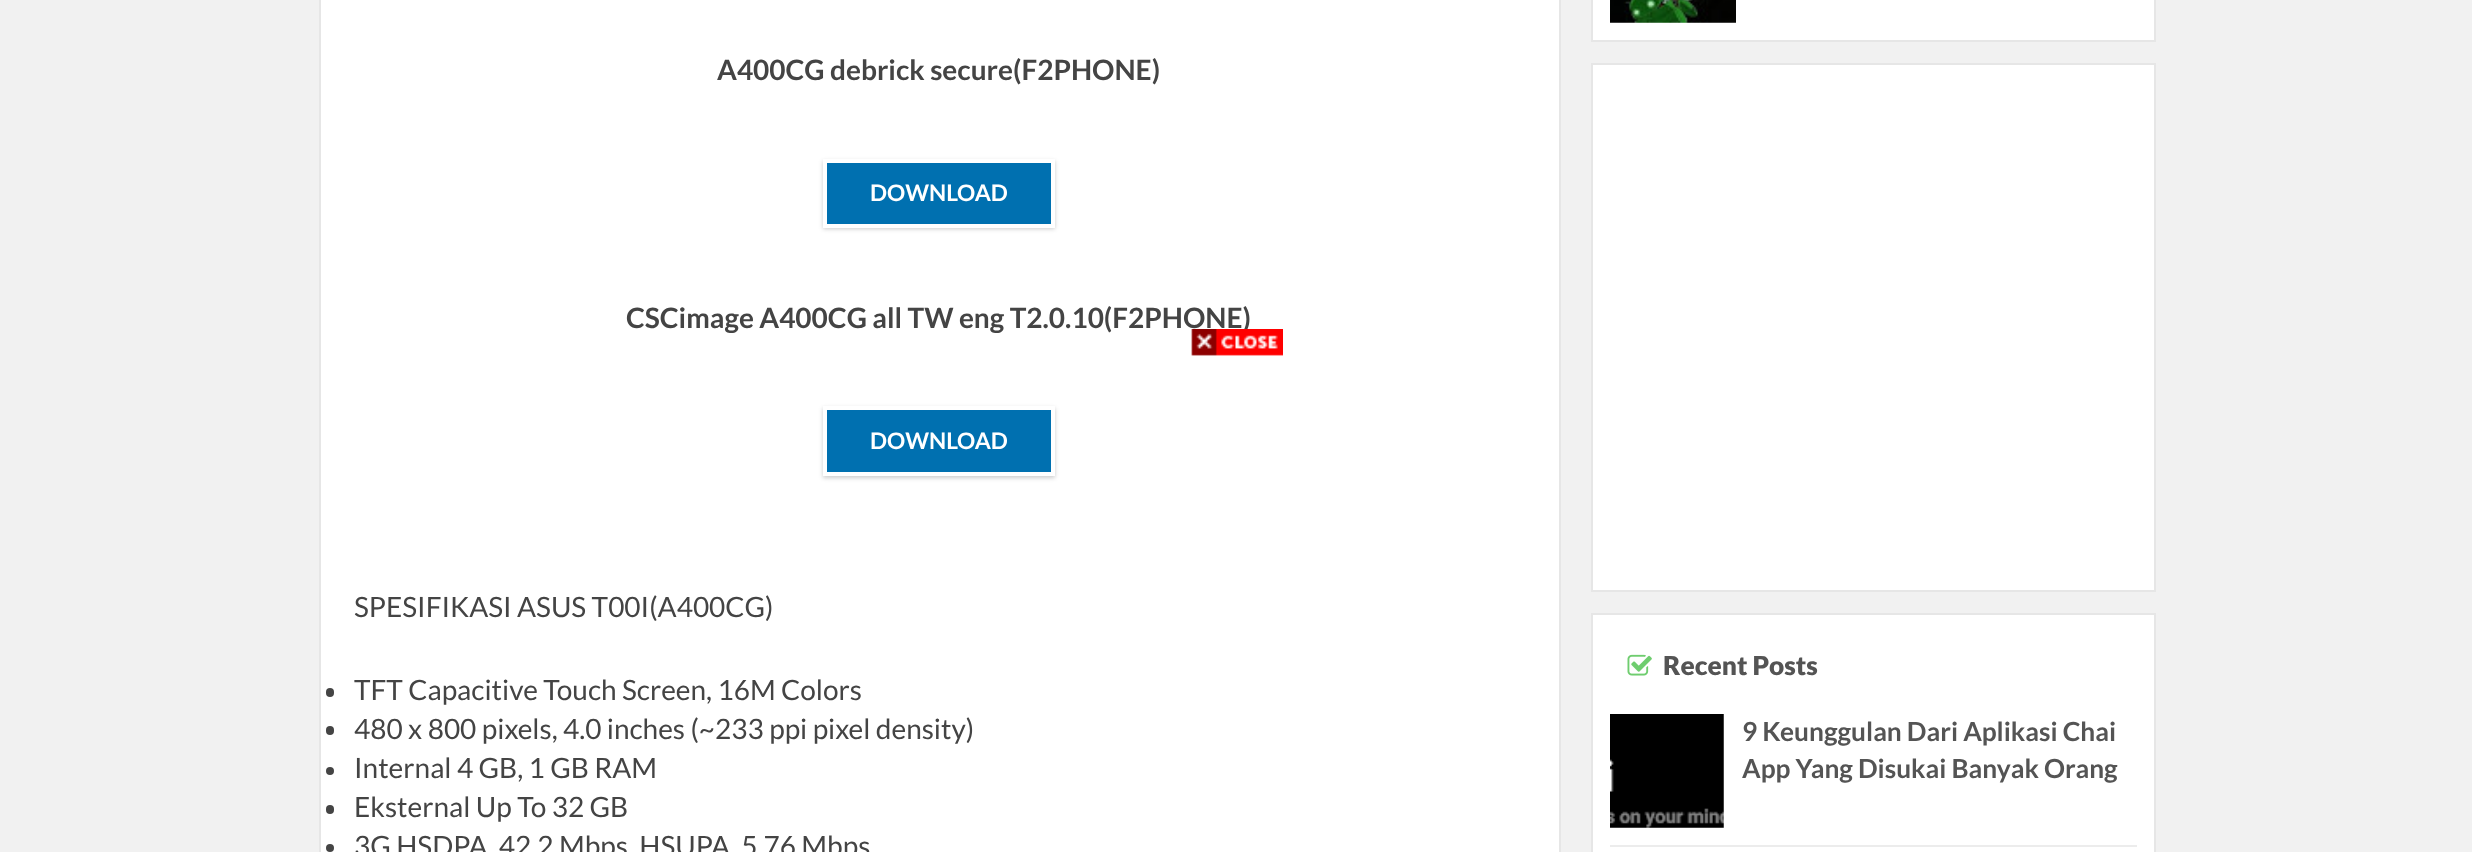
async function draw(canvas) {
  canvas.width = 2472;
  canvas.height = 852;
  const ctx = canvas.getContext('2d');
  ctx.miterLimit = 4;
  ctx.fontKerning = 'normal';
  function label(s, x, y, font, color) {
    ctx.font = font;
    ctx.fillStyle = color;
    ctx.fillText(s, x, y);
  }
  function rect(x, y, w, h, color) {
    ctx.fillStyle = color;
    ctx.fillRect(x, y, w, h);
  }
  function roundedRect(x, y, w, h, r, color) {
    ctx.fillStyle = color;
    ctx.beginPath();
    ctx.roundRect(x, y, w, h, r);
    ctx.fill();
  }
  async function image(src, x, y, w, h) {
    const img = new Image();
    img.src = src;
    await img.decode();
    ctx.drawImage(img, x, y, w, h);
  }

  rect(0, 0, 2472, 852, '#f1f1f1');
  ctx.fillStyle = '#fff';
  ctx.beginPath();
  ctx.rect(320, -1, 1240, 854);
  ctx.fill();
  ctx.strokeStyle = '#e6e6e6';
  ctx.lineWidth = 2;
  ctx.stroke();
  label('A400CG debrick secure(F2PHONE)', 717, 80, 'bold 28px Lato', '#444');
  ctx.fillStyle = '#00000033';
  ctx.filter = 'blur(2px)';
  ctx.beginPath();
  ctx.rect(823, 161, 232, 68);
  ctx.fill();
  ctx.filter = 'none';
  ctx.fillStyle = '#0070b0';
  ctx.beginPath();
  ctx.rect(825, 161, 228, 65);
  ctx.fill();
  ctx.strokeStyle = '#fff';
  ctx.lineWidth = 4;
  ctx.stroke();
  label('DOWNLOAD', 870, 201, 'bold 22.75px Lato', '#fff');
  label('CSCimage A400CG all TW eng T2.0.10(F2PHONE)', 626, 328, 'bold 28px Lato', '#444');
  ctx.fillStyle = '#00000033';
  ctx.filter = 'blur(2px)';
  ctx.beginPath();
  ctx.rect(823, 408, 232, 70);
  ctx.fill();
  ctx.filter = 'none';
  ctx.fillStyle = '#0070b0';
  ctx.beginPath();
  ctx.rect(825, 408, 228, 66);
  ctx.fill();
  ctx.stroke();
  label('DOWNLOAD', 870, 449, 'bold 22.75px Lato', '#fff');
  label('SPESIFIKASI ASUS T00I(A400CG)', 354, 617, '28px Lato', '#444');
  roundedRect(326, 688, 8, 9, 4, '#444');
  label('TFT Capacitive Touch Screen, 16M Colors', 354, 700, '28px Lato', '#444');
  roundedRect(326, 726, 8, 9, 4, '#444');
  label('480 x 800 pixels, 4.0 inches (~233 ppi pixel density)', 354, 739, '28px Lato', '#444');
  ctx.beginPath();
  ctx.arc(330, 771, 4, 0, 2 * Math.PI);
  ctx.fill();
  label('Internal 4 GB, 1 GB RAM', 354, 778, '28px Lato', '#444');
  roundedRect(326, 805, 8, 9, 4, '#444');
  label('Eksternal Up To 32 GB', 354, 817, '28px Lato', '#444');
  ctx.beginPath();
  ctx.arc(330, 848, 4, 0, 2 * Math.PI);
  ctx.fill();
  label('3G HSDPA, 42.2 Mbps, HSUPA, 5.76 Mbps', 354, 856, '28px Lato', '#444');
  ctx.fillStyle = '#fff';
  ctx.beginPath();
  ctx.rect(1592, -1, 563, 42);
  ctx.fill();
  ctx.strokeStyle = '#e6e6e6';
  ctx.lineWidth = 2;
  ctx.stroke();
  await image('assets/img1.png', 1610, 0, 126, 23);
  ctx.beginPath();
  ctx.rect(1592, 64, 563, 527);
  ctx.fill();
  ctx.stroke();
  ctx.beginPath();
  ctx.rect(1592, 614, 563, 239);
  ctx.fill();
  ctx.stroke();
  await image('assets/img2.png', 1627, 654, 25, 22);
  label('Recent Posts', 1663, 675, '900 26.25px Lato', '#545454');
  rect(1610, 845, 527, 2, '#ececec');
  await image('assets/img3.png', 1610, 714, 114, 114);
  label('9 Keunggulan Dari Aplikasi Chai', 1742, 741, 'bold 26.25px Lato', '#545454');
  label('App Yang Disukai Banyak Orang', 1742, 778, 'bold 26.25px Lato', '#545454');
  await image('assets/img4.png', 1191, 329, 92, 27);
}

draw(document.querySelector('canvas'));
